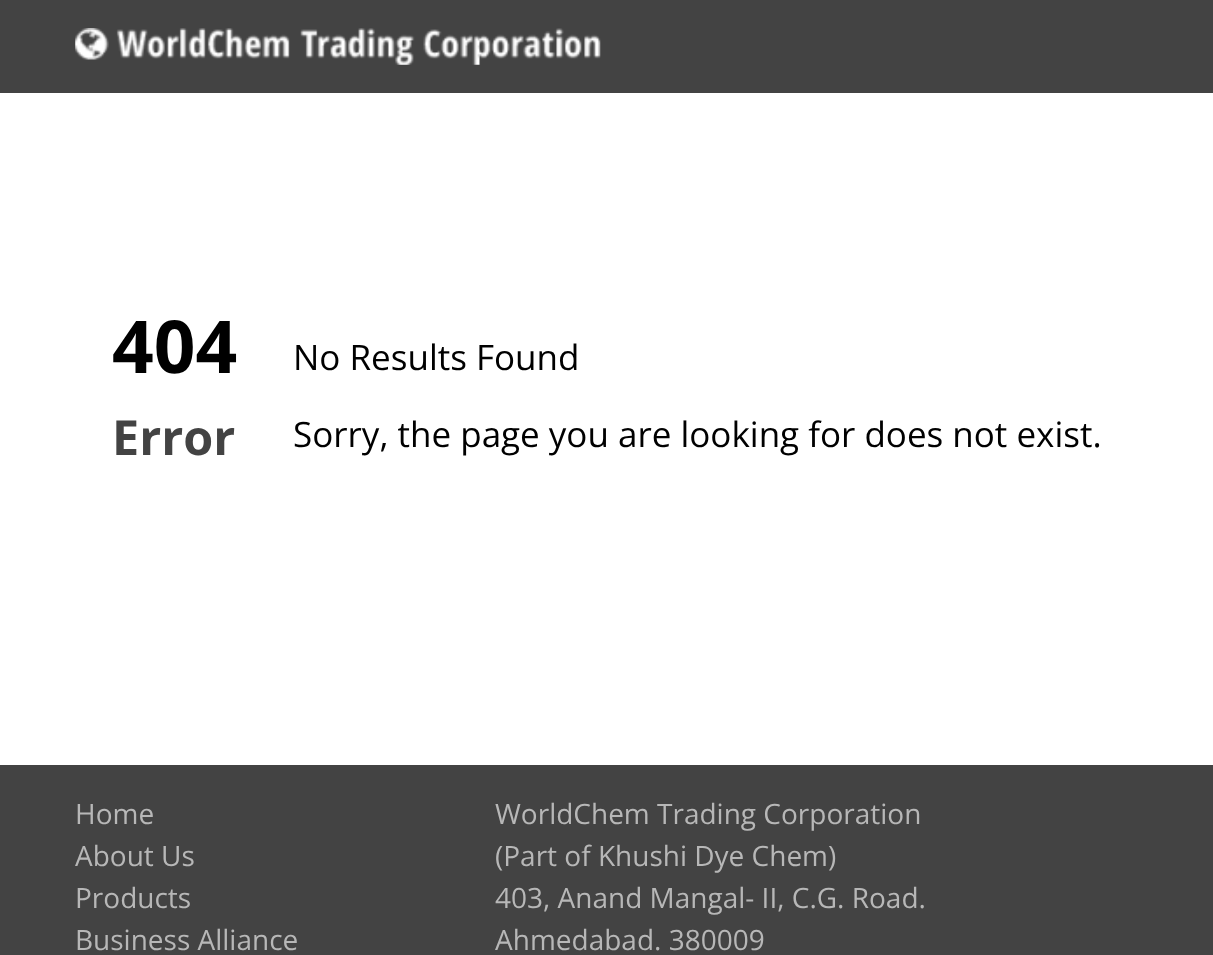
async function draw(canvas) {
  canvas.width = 1213;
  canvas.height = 955;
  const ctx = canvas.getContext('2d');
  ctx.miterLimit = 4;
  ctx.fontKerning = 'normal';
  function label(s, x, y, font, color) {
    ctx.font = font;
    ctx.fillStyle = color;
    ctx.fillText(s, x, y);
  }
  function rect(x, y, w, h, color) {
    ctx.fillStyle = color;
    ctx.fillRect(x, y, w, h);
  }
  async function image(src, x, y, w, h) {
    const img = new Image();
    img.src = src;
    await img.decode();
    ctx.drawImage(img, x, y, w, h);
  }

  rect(0, 0, 1213, 955, '#fff');
  rect(0, 0, 1213, 93, '#434343');
  await image('assets/img1.png', 75, 28, 526, 37);
  label('404', 112, 373, 'bold 73px Open Sans', '#000');
  label('Error', 112, 455, 'bold 48.5px Open Sans', '#434343');
  label('No Results Found', 293, 370, '35px Open Sans', '#000');
  label('Sorry, the page you are looking for does not exist.', 293, 447, '35px Open Sans', '#000');
  rect(0, 765, 1213, 190, '#434343');
  label('Home', 75, 824, '28px Open Sans', '#b7b7b7');
  label('About Us', 75, 866, '28px Open Sans', '#b7b7b7');
  label('Products', 75, 908, '28px Open Sans', '#b7b7b7');
  label('Business Alliance', 75, 950, '28px Open Sans', '#b7b7b7');
  label('WorldChem Trading Corporation', 495, 824, '28px Open Sans', '#b7b7b7');
  label('(Part of Khushi Dye Chem)', 495, 866, '28px Open Sans', '#b7b7b7');
  label('403, Anand Mangal- II, C.G. Road.', 495, 908, '28px Open Sans', '#b7b7b7');
  label('Ahmedabad. 380009', 495, 950, '28px Open Sans', '#b7b7b7');
}

draw(document.querySelector('canvas'));
